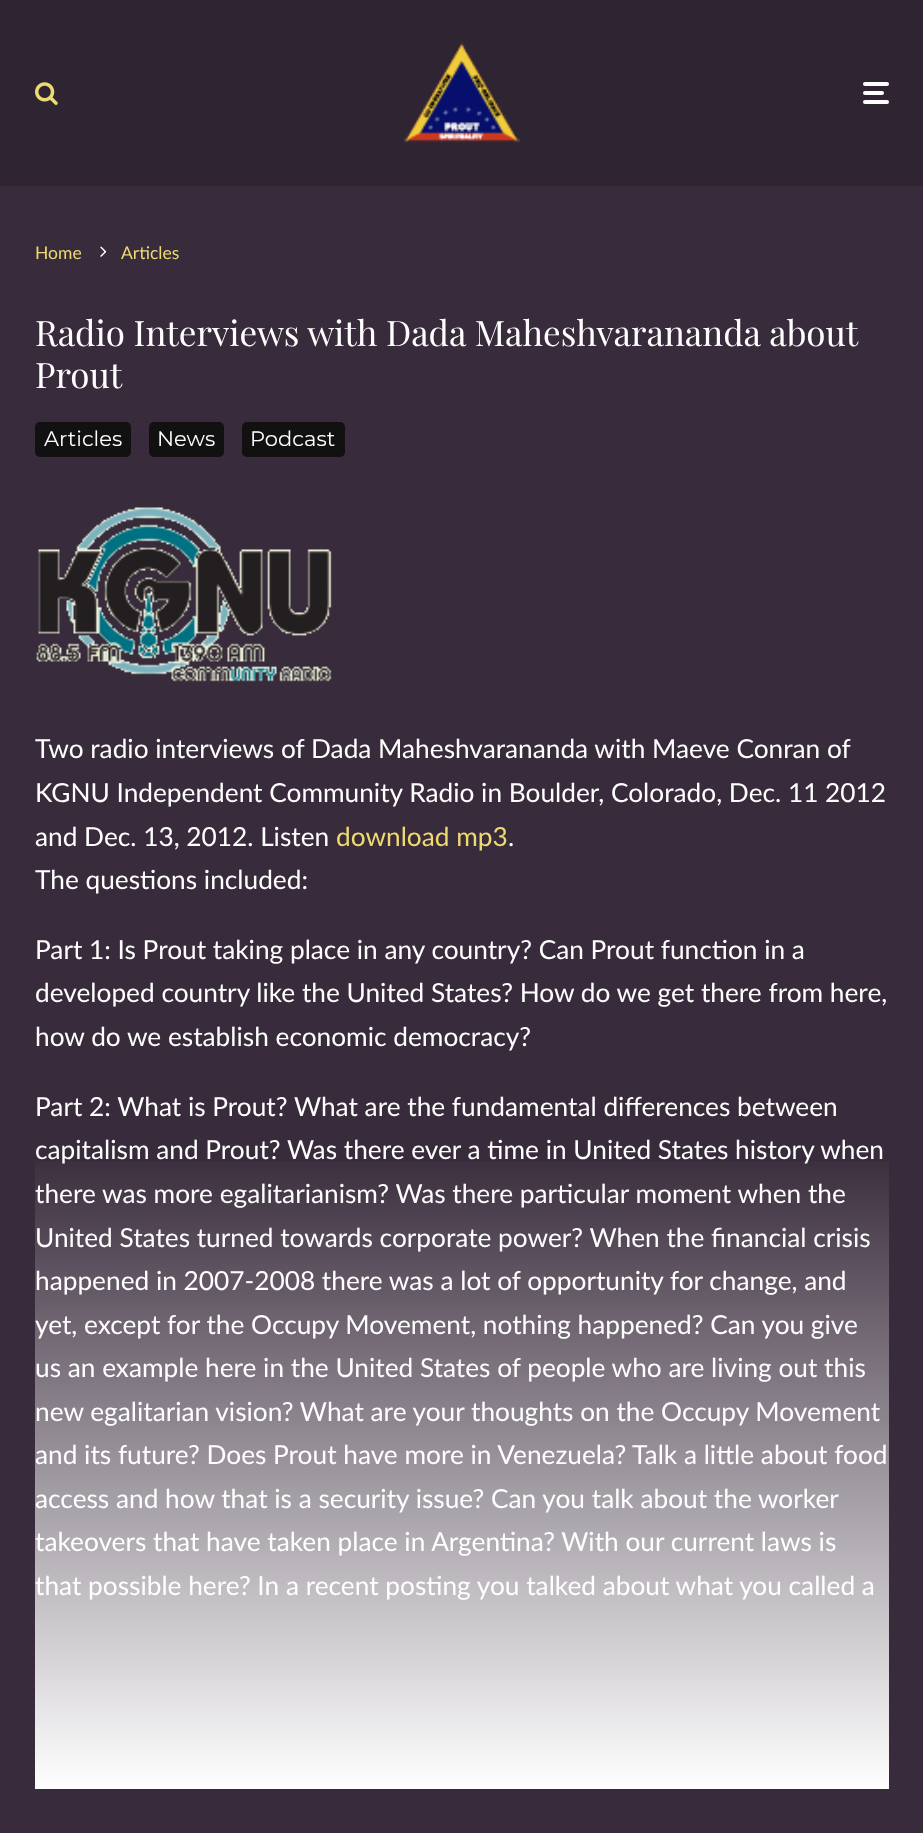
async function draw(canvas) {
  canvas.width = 923;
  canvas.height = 1833;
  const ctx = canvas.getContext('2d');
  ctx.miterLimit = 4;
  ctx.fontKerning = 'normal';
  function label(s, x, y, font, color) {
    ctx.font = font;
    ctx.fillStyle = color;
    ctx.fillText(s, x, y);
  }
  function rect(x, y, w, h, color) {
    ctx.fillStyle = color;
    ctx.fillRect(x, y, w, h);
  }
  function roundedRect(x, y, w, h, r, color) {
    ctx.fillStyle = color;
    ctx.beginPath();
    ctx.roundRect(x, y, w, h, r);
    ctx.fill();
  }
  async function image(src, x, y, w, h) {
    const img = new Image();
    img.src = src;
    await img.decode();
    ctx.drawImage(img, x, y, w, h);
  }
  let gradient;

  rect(0, 0, 923, 1833, '#382b3b');
  rect(0, 0, 923, 186, '#2f2432');
  await image('assets/img1.png', 35, 82, 23, 23);
  await image('assets/img2.png', 404, 42, 116, 101);
  roundedRect(863, 91, 21, 4, 2, '#fff');
  roundedRect(863, 82, 26, 4, 2, '#fff');
  roundedRect(863, 100, 26, 4, 2, '#fff');
  label('Home', 35, 259, '17.5px Lato', '#efda71');
  await image('assets/img3.png', 100, 246, 7, 11);
  label('Articles', 121, 259, '17.5px Lato', '#efda71');
  label('Radio Interviews with Dada Maheshvarananda about', 35, 346, '35px Playfair Display', '#fff');
  label('Prout', 35, 388, '35px Playfair Display', '#fff');
  roundedRect(35, 422, 96, 35, 5, '#111');
  label('Articles', 44, 446, '21px Montserrat', '#fff');
  roundedRect(149, 422, 75, 35, 5, '#111');
  label('News', 157, 446, '21px Montserrat', '#fff');
  roundedRect(242, 422, 103, 35, 5, '#111');
  label('Podcast', 250, 446, '21px Montserrat', '#fff');
  await image('assets/img4.png', 36, 507, 296, 175);
  label('Two radio interviews of Dada Maheshvarananda with Maeve Conran of', 35, 758, '26.25px Lato', '#fff');
  label('KGNU Independent Community Radio in Boulder, Colorado, Dec. 11 2012', 35, 802, '26.25px Lato', '#fff');
  label('and Dec. 13, 2012. Listen', 35, 846, '26.25px Lato', '#fff');
  label('download mp3', 336, 846, '26.25px Lato', '#efda71');
  label('.', 508, 846, '26.25px Lato', '#fff');
  label('The questions included:', 35, 889, '26.25px Lato', '#fff');
  label('Part 1: Is Prout taking place in any country? Can Prout function in a', 35, 959, '26.25px Lato', '#fff');
  label('developed country like the United States? How do we get there from here,', 35, 1002, '26.25px Lato', '#fff');
  label('how do we establish economic democracy?', 35, 1046, '26.25px Lato', '#fff');
  label('Part 2: What is Prout? What are the fundamental differences between', 35, 1116, '26.25px Lato', '#fff');
  label('capitalism and Prout? Was there ever a time in United States history when', 35, 1159, '26.25px Lato', '#fff');
  label('there was more egalitarianism? Was there particular moment when the', 35, 1203, '26.25px Lato', '#fff');
  label('United States turned towards corporate power? When the financial crisis', 35, 1247, '26.25px Lato', '#fff');
  label('happened in 2007-2008 there was a lot of opportunity for change, and', 35, 1290, '26.25px Lato', '#fff');
  label('yet, except for the Occupy Movement, nothing happened? Can you give', 35, 1334, '26.25px Lato', '#fff');
  label('us an example here in the United States of people who are living out this', 35, 1377, '26.25px Lato', '#fff');
  label('new egalitarian vision? What are your thoughts on the Occupy Movement', 35, 1421, '26.25px Lato', '#fff');
  label('and its future? Does Prout have more in Venezuela? Talk a little about food', 35, 1464, '26.25px Lato', '#fff');
  label('access and how that is a security issue? Can you talk about the worker', 35, 1508, '26.25px Lato', '#fff');
  label('takeovers that have taken place in Argentina? With our current laws is', 35, 1551, '26.25px Lato', '#fff');
  label('that possible here? In a recent posting you talked about what you called a', 35, 1595, '26.25px Lato', '#fff');
  gradient = ctx.createLinearGradient(462, 506, 462, 1789);
  gradient.addColorStop(0.5, '#ffffff00');
  gradient.addColorStop(1, '#fff');
  ctx.fillStyle = gradient;
  ctx.fillRect(35, 1161, 854, 628);
}

draw(document.querySelector('canvas'));
